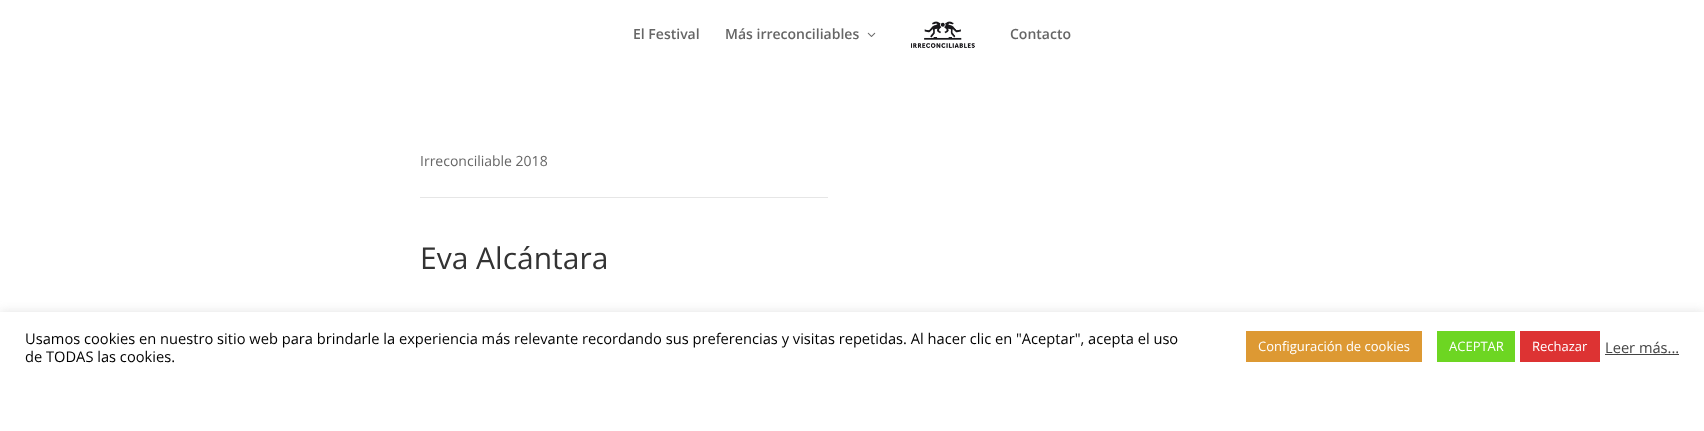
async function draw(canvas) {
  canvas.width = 1704;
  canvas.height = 431;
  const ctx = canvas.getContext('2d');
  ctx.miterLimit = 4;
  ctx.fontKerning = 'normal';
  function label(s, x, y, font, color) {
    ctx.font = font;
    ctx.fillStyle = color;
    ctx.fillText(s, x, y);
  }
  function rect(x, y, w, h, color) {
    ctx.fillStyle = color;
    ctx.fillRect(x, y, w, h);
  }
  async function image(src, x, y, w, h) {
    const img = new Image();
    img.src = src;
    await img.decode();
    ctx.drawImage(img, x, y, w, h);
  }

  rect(0, 0, 1704, 431, '#fff');
  label('El Festival', 633, 39, '600 14px Open Sans', '#666');
  label('Más irreconciliables', 725, 39, '600 14px Open Sans', '#666');
  await image('assets/img1.png', 867, 32, 9, 5);
  await image('assets/img2.png', 911, 21, 64, 27);
  label('Contacto', 1010, 39, '600 14px Open Sans', '#666');
  label('Irreconciliable 2018', 420, 166, '14px Open Sans', '#666');
  rect(420, 197, 408, 1, '#e6e6e6');
  label('Eva Alcántara', 420, 269, '30px Open Sans', '#333');
  ctx.fillStyle = '#acabab4d';
  ctx.filter = 'blur(5px)';
  ctx.beginPath();
  ctx.rect(0, 311, 1704, 119);
  ctx.fill();
  ctx.filter = 'none';
  rect(0, 312, 1704, 119, '#fff');
  label('Usamos cookies en nuestro sitio web para brindarle la experiencia más relevante recordando sus preferencias y visitas repetidas. Al hacer clic en "Aceptar", acepta el uso', 25, 344, '14.67px Open Sans', '#000');
  label('de TODAS las cookies.', 25, 362, '14.67px Open Sans', '#000');
  rect(1246, 331, 176, 31, '#d93');
  label('Configuración de cookies', 1258, 351, '13px Open Sans', '#fff');
  rect(1437, 331, 78, 31, '#6dd622');
  label('ACEPTAR', 1449, 351, '13px Open Sans', '#fff');
  rect(1520, 331, 80, 31, '#d33');
  label('Rechazar', 1532, 351, '13px Open Sans', '#fff');
  label('Leer más...', 1605, 353, '14.67px Open Sans', '#444');
  rect(1605, 354, 74, 1, '#444');
}

draw(document.querySelector('canvas'));
